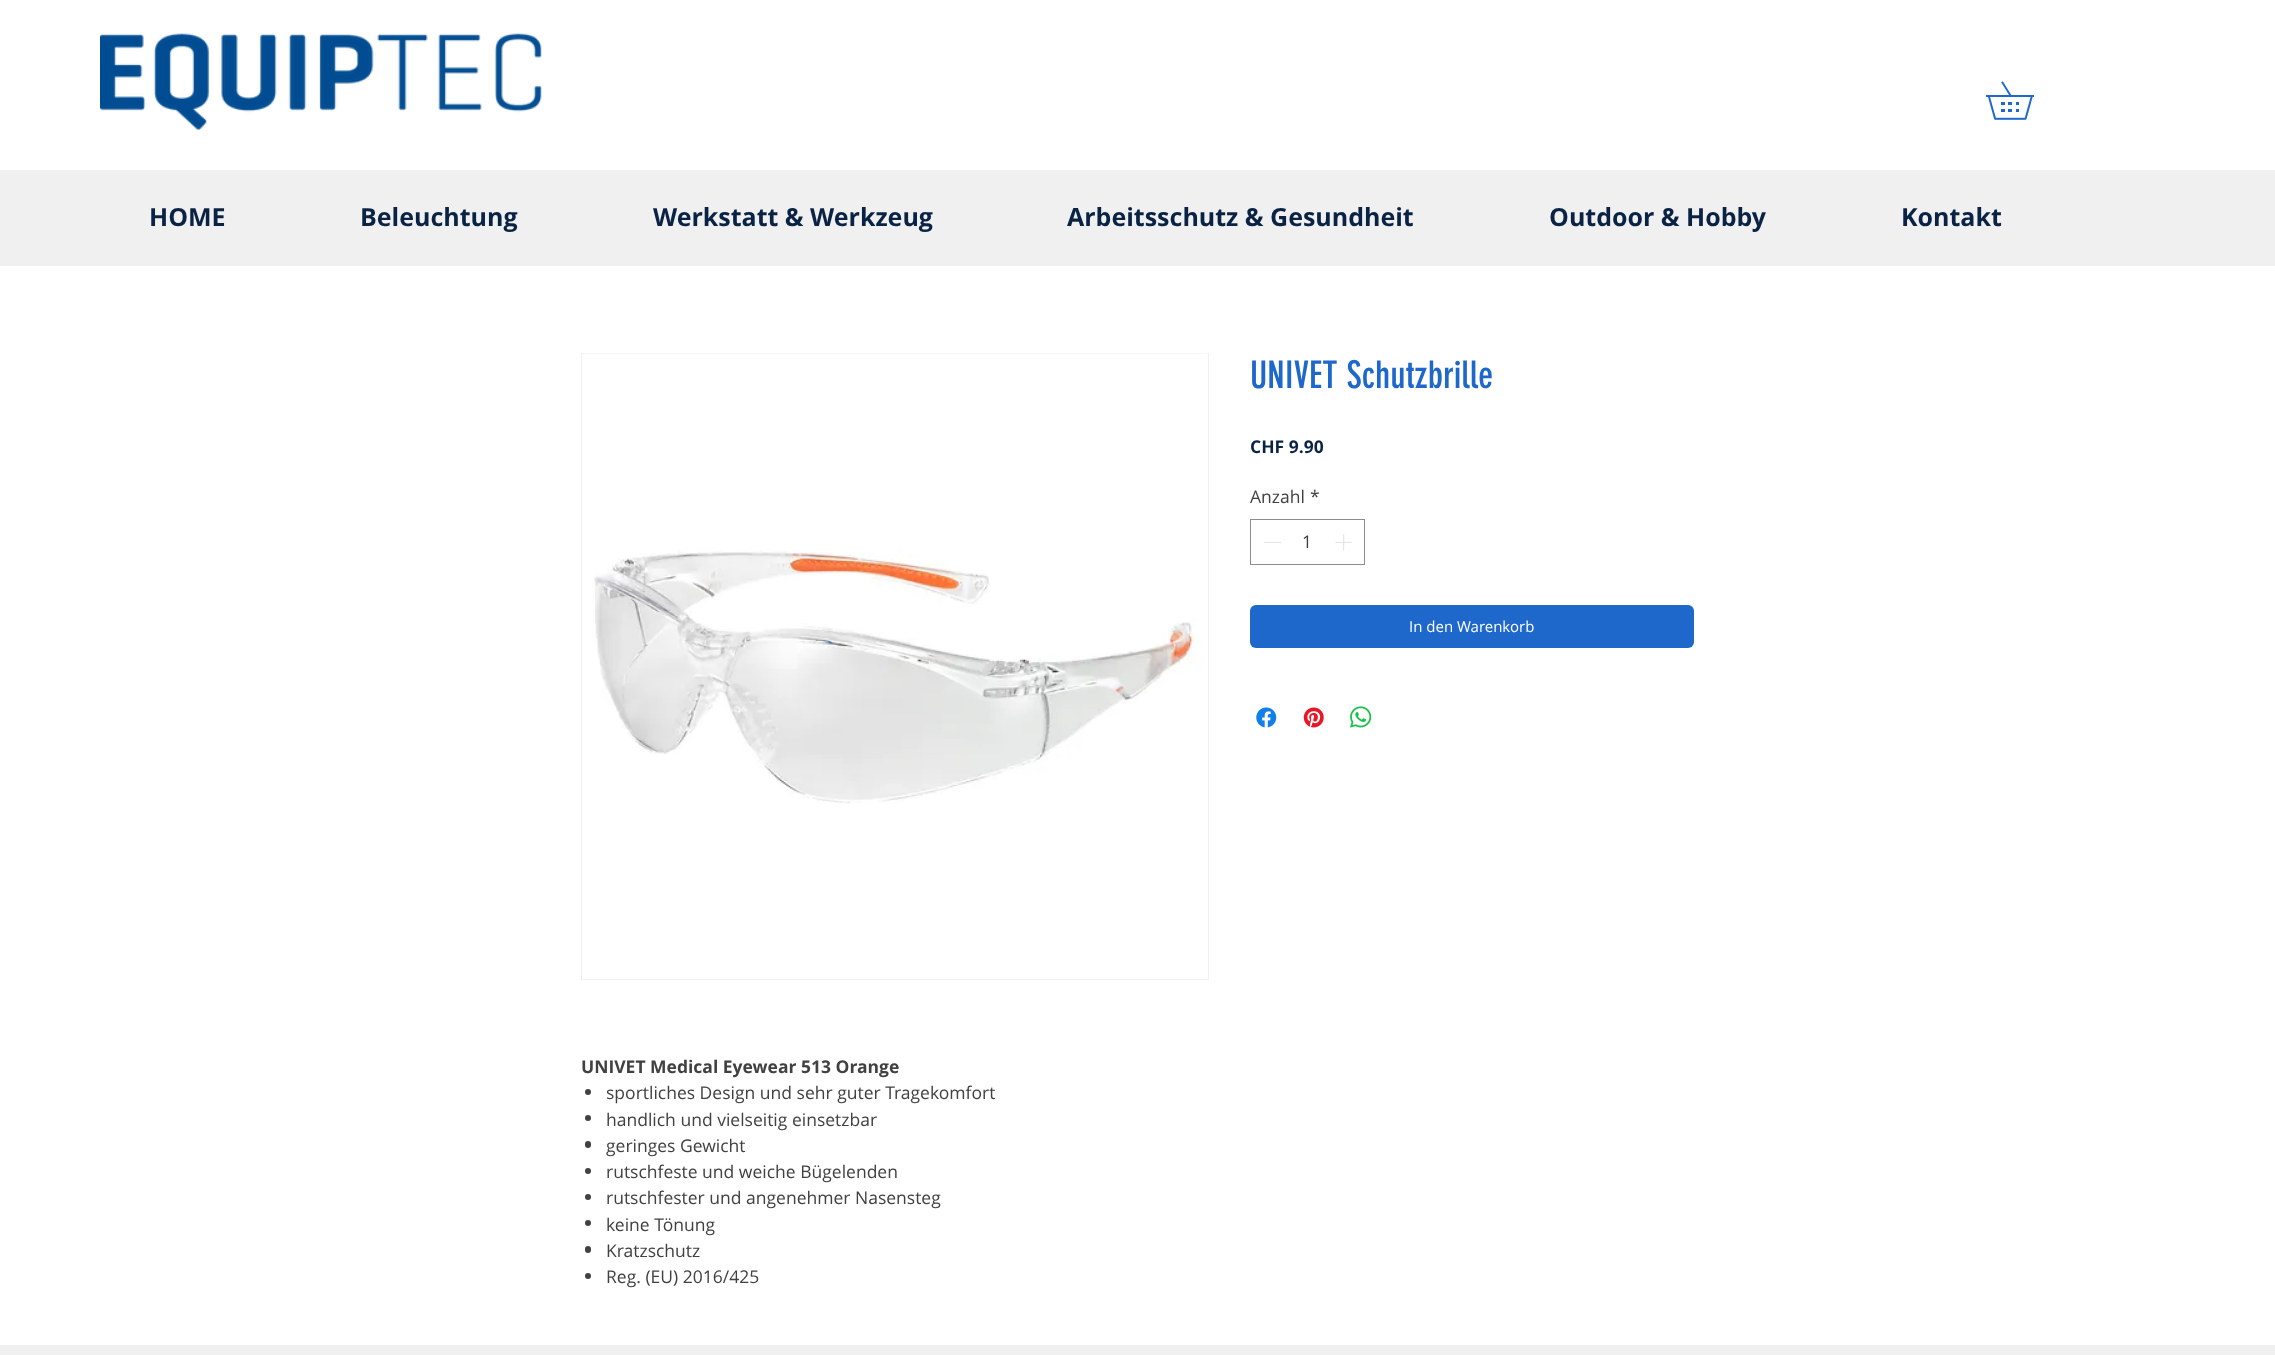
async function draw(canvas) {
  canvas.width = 2275;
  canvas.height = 1355;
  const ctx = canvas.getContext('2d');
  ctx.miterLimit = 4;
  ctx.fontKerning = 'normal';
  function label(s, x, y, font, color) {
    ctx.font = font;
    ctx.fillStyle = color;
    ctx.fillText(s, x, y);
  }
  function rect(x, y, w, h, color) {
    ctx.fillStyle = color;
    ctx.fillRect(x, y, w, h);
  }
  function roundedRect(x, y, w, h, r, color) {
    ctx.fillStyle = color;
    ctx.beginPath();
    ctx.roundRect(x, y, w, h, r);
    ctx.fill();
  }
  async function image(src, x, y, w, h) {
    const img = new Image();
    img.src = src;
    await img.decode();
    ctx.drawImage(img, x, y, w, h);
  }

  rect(0, 0, 2275, 1355, '#fff');
  await image('assets/img1.png', 1986, 81, 48, 39);
  rect(0, 170, 2275, 96, '#f0f0f0');
  await image('assets/img2.png', 100, 33, 442, 97);
  label('HOME', 149, 226, 'bold 25px Open Sans', '#0a2344');
  label('Beleuchtung', 360, 226, 'bold 25px Open Sans', '#0a2344');
  label('Werkstatt & Werkzeug', 653, 226, 'bold 25px Open Sans', '#0a2344');
  label('Arbeitsschutz & Gesundheit', 1067, 226, 'bold 25px Open Sans', '#0a2344');
  label('Outdoor & Hobby', 1549, 226, 'bold 25px Open Sans', '#0a2344');
  label('Kontakt', 1901, 226, 'bold 25px Open Sans', '#0a2344');
  label('UNIVET Schutzbrille', 1250, 388, '37.5px "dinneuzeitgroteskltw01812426"', '#1e68cb');
  label('CHF 9.90', 1250, 453, 'bold 17.5px Open Sans', '#0a2344');
  label('Anzahl', 1250, 503, '17.5px Open Sans', '#414141');
  label('*', 1310, 503, '17.5px Open Sans', '#414141');
  ctx.strokeStyle = '#8d8d8d';
  ctx.strokeRect(1250.5, 519.5, 114, 45);
  rect(1264, 542, 17, 1, '#e3e3e3');
  label('1', 1302, 548, '17.5px Open Sans', '#414141');
  await image('assets/img3.png', 1335, 534, 17, 17);
  roundedRect(1250, 605, 444, 43, 6, '#1e68cb');
  label('In den Warenkorb', 1409, 632, '15px Open Sans', '#fff');
  await image('assets/img4.png', 1256, 707, 21, 21);
  await image('assets/img5.png', 1303, 707, 21, 21);
  await image('assets/img6.png', 1350, 706, 22, 22);
  ctx.strokeStyle = '#f0f0f0';
  ctx.strokeRect(581.5, 353.5, 627, 626);
  await image('assets/img7.png', 583, 353, 624, 451);
  label('UNIVET Medical Eyewear 513 Orange', 581, 1073, 'bold 17.5px Open Sans', '#414141');
  ctx.beginPath();
  ctx.arc(588, 1092, 3, 0, 2 * Math.PI);
  ctx.fill();
  label('sportliches Design und sehr guter Tragekomfort', 606, 1099, '17.5px Open Sans', '#414141');
  ctx.beginPath();
  ctx.arc(588, 1118, 3, 0, 2 * Math.PI);
  ctx.fill();
  label('handlich und vielseitig einsetzbar', 606, 1126, '17.5px Open Sans', '#414141');
  roundedRect(585, 1141, 6, 7, 3, '#414141');
  label('geringes Gewicht', 606, 1152, '17.5px Open Sans', '#414141');
  ctx.beginPath();
  ctx.arc(588, 1171, 3, 0, 2 * Math.PI);
  ctx.fill();
  label('rutschfeste und weiche Bügelenden', 606, 1178, '17.5px Open Sans', '#414141');
  ctx.beginPath();
  ctx.arc(588, 1197, 3, 0, 2 * Math.PI);
  ctx.fill();
  label('rutschfester und angenehmer Nasensteg', 606, 1204, '17.5px Open Sans', '#414141');
  ctx.beginPath();
  ctx.arc(588, 1223, 3, 0, 2 * Math.PI);
  ctx.fill();
  label('keine Tönung', 606, 1231, '17.5px Open Sans', '#414141');
  roundedRect(585, 1246, 6, 7, 3, '#414141');
  label('Kratzschutz', 606, 1257, '17.5px Open Sans', '#414141');
  ctx.beginPath();
  ctx.arc(588, 1276, 3, 0, 2 * Math.PI);
  ctx.fill();
  label('Reg. (EU) 2016/425', 606, 1283, '17.5px Open Sans', '#414141');
  rect(0, 1345, 2275, 10, '#f0f0f0');
}

draw(document.querySelector('canvas'));
